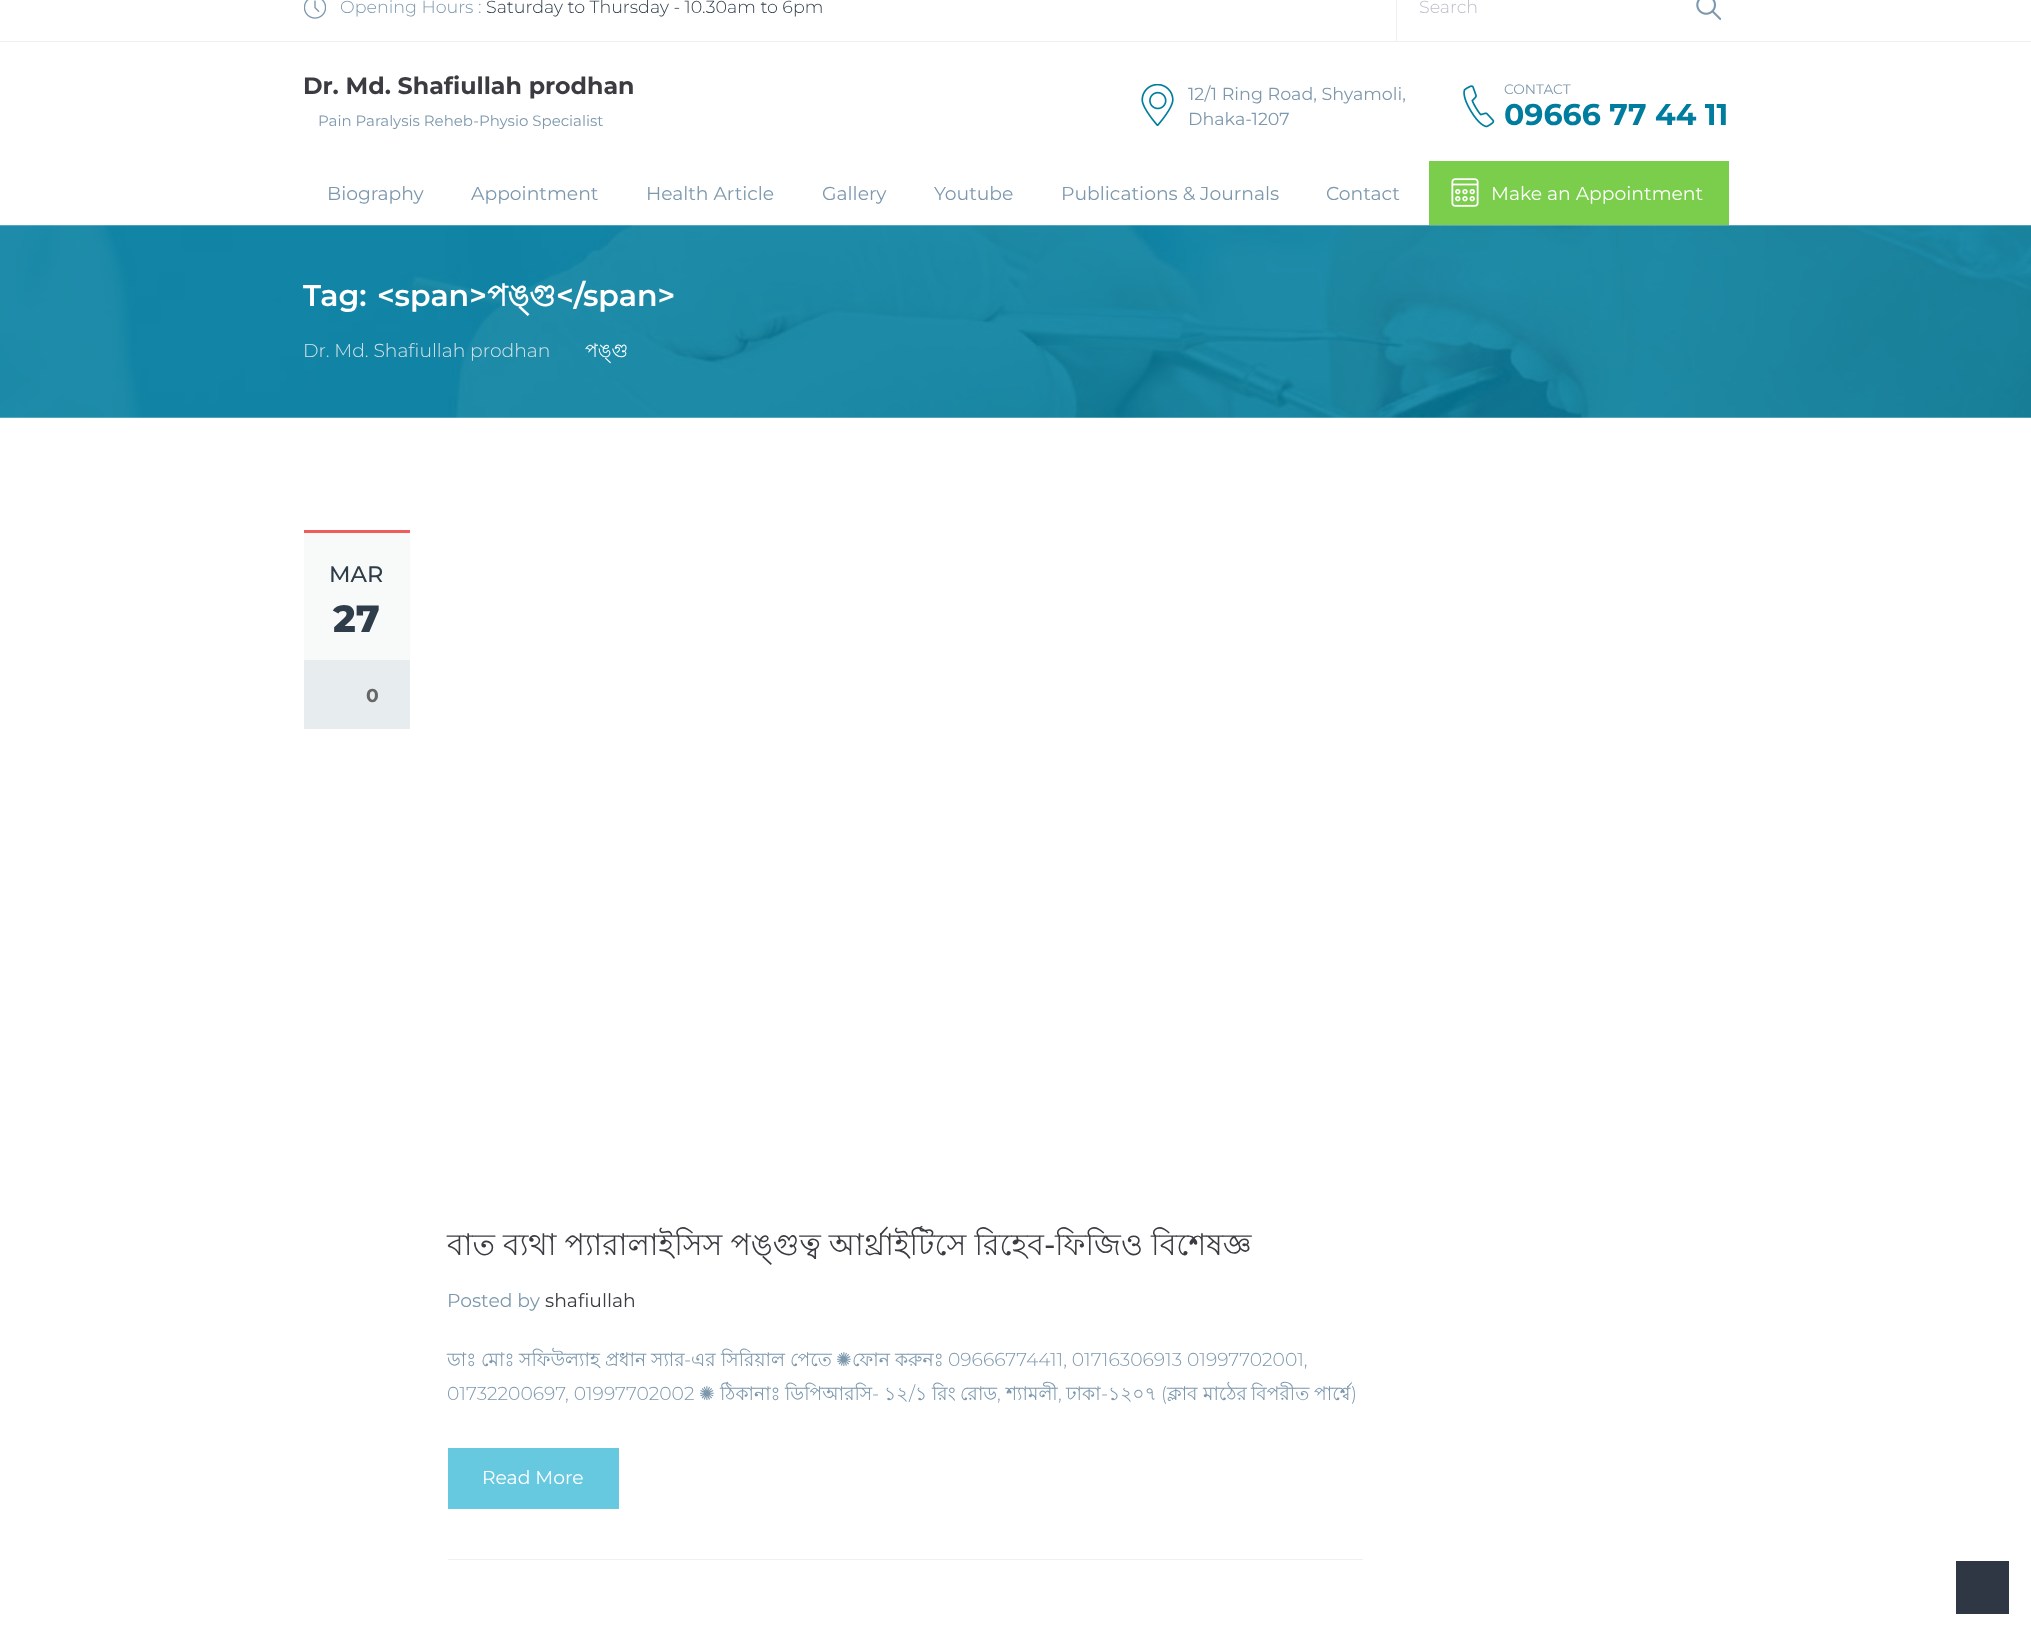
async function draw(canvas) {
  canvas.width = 2031;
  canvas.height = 1636;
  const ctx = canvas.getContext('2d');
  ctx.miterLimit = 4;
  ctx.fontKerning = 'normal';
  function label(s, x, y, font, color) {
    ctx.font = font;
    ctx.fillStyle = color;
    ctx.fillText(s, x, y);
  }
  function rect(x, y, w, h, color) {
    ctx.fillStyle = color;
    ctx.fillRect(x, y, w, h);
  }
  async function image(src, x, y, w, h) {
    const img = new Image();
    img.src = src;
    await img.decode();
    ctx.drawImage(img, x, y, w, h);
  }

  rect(0, 0, 2031, 1636, '#fff');
  rect(0, 41, 2031, 1, '#ecf1f2');
  await image('assets/img1.png', 304, 0, 22, 19);
  label('Opening Hours :', 340, 13, '300 17.5px Montserrat', '#7d98ad');
  label('Saturday to Thursday - 10.30am to 6pm', 486, 13, '300 17.5px Montserrat', '#2f3d4a');
  rect(1396, 0, 1, 41, '#ecf1f2');
  label('Search', 1419, 13, '300 17.5px Montserrat', '#bbbfc9');
  await image('assets/img2.png', 1696, 0, 25, 20);
  label('Dr. Md. Shafiullah prodhan', 303, 94, 'bold 23.75px Montserrat', '#3a3c41');
  label('Pain Paralysis Reheb-Physio Specialist', 318, 126, '15px Montserrat', '#7d98ad');
  await image('assets/img3.png', 1141, 84, 33, 42);
  label('12/1 Ring Road, Shyamoli,', 1188, 100, '17.5px Montserrat', '#7d98ad');
  label('Dhaka-1207', 1188, 125, '17.5px Montserrat', '#7d98ad');
  await image('assets/img4.png', 1463, 85, 32, 43);
  label('CONTACT', 1504, 94, '13.75px Montserrat', '#7d98ad');
  label('09666 77 44 11', 1504, 125, 'bold 30px Montserrat', '#007d9e');
  label('Biography', 327, 200, '18.75px Montserrat', '#7d98ad');
  label('Appointment', 471, 200, '18.75px Montserrat', '#7d98ad');
  label('Health Article', 646, 200, '18.75px Montserrat', '#7d98ad');
  label('Gallery', 822, 200, '18.75px Montserrat', '#7d98ad');
  label('Youtube', 934, 200, '18.75px Montserrat', '#7d98ad');
  label('Publications & Journals', 1061, 200, '18.75px Montserrat', '#7d98ad');
  label('Contact', 1326, 200, '18.75px Montserrat', '#7d98ad');
  rect(1429, 161, 300, 64, '#7ace4c');
  await image('assets/img5.png', 1451, 178, 28, 29);
  label('Make an Appointment', 1491, 200, '18.75px Montserrat', '#fff');
  await image('assets/img6.png', 0, 225, 2031, 193);
  ctx.wordSpacing = '2px';
  label('Tag: <span>', 303, 306, '600 30px Montserrat', '#fff');
  ctx.wordSpacing = '0px';
  label('পঙ্গু', 487, 306, 'bold 30px Lohit Bengali', '#fff');
  label('<\/span>', 556, 306, '600 30px Montserrat', '#fff');
  label('Dr. Md. Shafiullah prodhan', 303, 357, '300 18.75px Montserrat', '#d5e4ea');
  label('পঙ্গু', 585, 357, '18.75px Lohit Bengali', '#fff');
  rect(304, 530, 106, 3, '#f15b5a');
  rect(304, 533, 106, 127, '#f8fafa');
  label('MAR', 329, 582, '500 22.5px Montserrat', '#2f3d4a');
  label('27', 333, 632, '800 38px Montserrat', '#2f3d4a');
  rect(304, 660, 106, 69, '#e7ecee');
  label('0', 366, 702, 'bold 18.75px Montserrat', '#676666');
  rect(448, 1559, 915, 1, '#ecf1f2');
  ctx.wordSpacing = '-0.25px';
  label('বাত ব্যথা প্যারালাইসিস পঙ্গুত্ব আর্থ্রাইটিসে রিহেব', 447, 1255, '30px Lohit Bengali', '#3a3c41');
  ctx.wordSpacing = '0px';
  label('-', 1044, 1255, '500 30px Montserrat', '#3a3c41');
  ctx.wordSpacing = '-0.25px';
  label('ফিজিও বিশেষজ্ঞ', 1055, 1255, '30px Lohit Bengali', '#3a3c41');
  ctx.wordSpacing = '0px';
  label('Posted by', 447, 1307, '18.75px Montserrat', '#7d98ad');
  label('shafiullah', 545, 1307, '18.75px Montserrat', '#3a3c41');
  label('ডাঃ', 447, 1366, '18.75px Lohit Bengali', '#7d98ad');
  label('মোঃ', 481, 1366, '18.75px Lohit Bengali', '#7d98ad');
  label('সফিউল্যাহ', 519, 1366, '18.75px Lohit Bengali', '#7d98ad');
  label('প্রধান', 605, 1366, '18.75px Lohit Bengali', '#7d98ad');
  label('স্যার', 651, 1366, '18.75px Lohit Bengali', '#7d98ad');
  label('-', 684, 1366, '300 18.75px Montserrat', '#7d98ad');
  label('এর', 691, 1366, '18.75px Lohit Bengali', '#7d98ad');
  label('সিরিয়াল', 721, 1366, '18.75px Lohit Bengali', '#7d98ad');
  label('পেতে', 790, 1366, '18.75px Lohit Bengali', '#7d98ad');
  label('✺', 836, 1366, '18.75px DejaVu Sans', '#7d98ad');
  label('ফোন', 852, 1366, '18.75px Lohit Bengali', '#7d98ad');
  label('করুনঃ', 895, 1366, '18.75px Lohit Bengali', '#7d98ad');
  label('09666774411, 01716306913 01997702001,', 948, 1366, '300 18.75px Montserrat', '#7d98ad');
  label('01732200697, 01997702002', 447, 1400, '300 18.75px Montserrat', '#7d98ad');
  label('✺', 699, 1400, '18.75px DejaVu Sans', '#7d98ad');
  label('ঠিকানাঃ', 720, 1400, '18.75px Lohit Bengali', '#7d98ad');
  label('ডিপিআরসি', 785, 1400, '18.75px Lohit Bengali', '#7d98ad');
  label('-', 872, 1400, '300 18.75px Montserrat', '#7d98ad');
  label('১২', 884, 1400, '18.75px Lohit Bengali', '#7d98ad');
  label('/', 909, 1400, '300 18.75px Montserrat', '#7d98ad');
  label('১', 915, 1400, '18.75px Lohit Bengali', '#7d98ad');
  label('রিং', 932, 1400, '18.75px Lohit Bengali', '#7d98ad');
  label('রোড', 960, 1400, '18.75px Lohit Bengali', '#7d98ad');
  label('শ্যামলী', 1006, 1400, '18.75px Lohit Bengali', '#7d98ad');
  label('ঢাকা', 1066, 1400, '18.75px Lohit Bengali', '#7d98ad');
  label('-', 1101, 1400, '300 18.75px Montserrat', '#7d98ad');
  label('১২০৭', 1108, 1400, '18.75px Lohit Bengali', '#7d98ad');
  label('(', 1161, 1400, '300 18.75px Montserrat', '#7d98ad');
  label('ক্লাব', 1167, 1400, '18.75px Lohit Bengali', '#7d98ad');
  label('মাঠের', 1203, 1400, '18.75px Lohit Bengali', '#7d98ad');
  label('বিপরীত', 1251, 1400, '18.75px Lohit Bengali', '#7d98ad');
  label('পার্শ্বে', 1314, 1400, '18.75px Lohit Bengali', '#7d98ad');
  label(')', 1351, 1400, '300 18.75px Montserrat', '#7d98ad');
  label(',', 997, 1400, '300 18.75px Montserrat', '#7d98ad');
  label(',', 1058, 1400, '300 18.75px Montserrat', '#7d98ad');
  rect(448, 1448, 171, 61, '#67c9e0');
  label('Read More', 482, 1484, '18.75px Montserrat', '#fff');
  rect(1956, 1561, 53, 53, '#2f3644');
}

draw(document.querySelector('canvas'));
